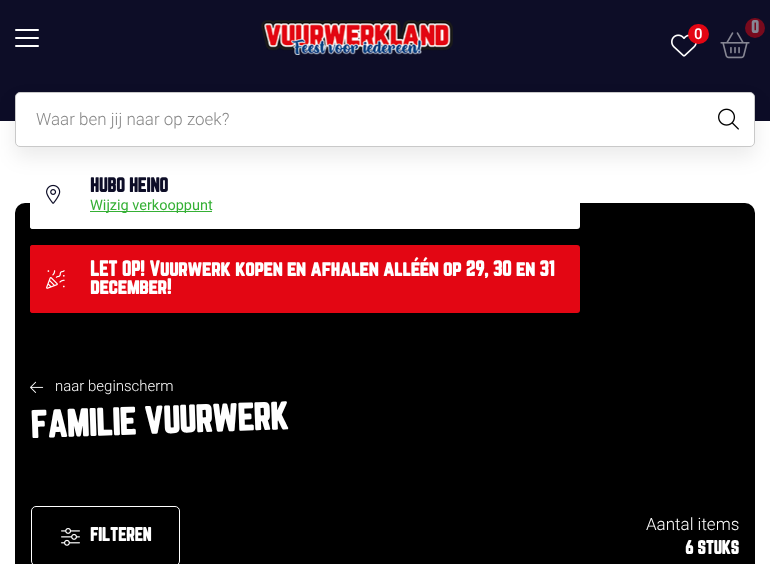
async function draw(canvas) {
  canvas.width = 770;
  canvas.height = 564;
  const ctx = canvas.getContext('2d');
  ctx.miterLimit = 4;
  ctx.fontKerning = 'normal';
  function label(s, x, y, font, color) {
    ctx.font = font;
    ctx.fillStyle = color;
    ctx.fillText(s, x, y);
  }
  function rect(x, y, w, h, color) {
    ctx.fillStyle = color;
    ctx.fillRect(x, y, w, h);
  }
  function roundedRect(x, y, w, h, r, color) {
    ctx.fillStyle = color;
    ctx.beginPath();
    ctx.roundRect(x, y, w, h, r);
    ctx.fill();
  }
  async function image(src, x, y, w, h) {
    const img = new Image();
    img.src = src;
    await img.decode();
    ctx.drawImage(img, x, y, w, h);
  }

  rect(0, 0, 770, 564, '#fff');
  rect(0, 0, 770, 121, '#0d0d27');
  roundedRect(15, 37, 24, 2, 1, '#fff');
  roundedRect(15, 29, 24, 2, 1, '#fff');
  roundedRect(15, 45, 24, 2, 1, '#fff');
  await image('assets/img1.png', 261, 20, 192, 35);
  await image('assets/img2.png', 671, 34, 26, 23);
  roundedRect(688, 24, 21, 20, 10, '#e30613');
  label('0', 694, 39, '500 15px Roboto', '#fff');
  await image('assets/img3.png', 720, 32, 30, 27);
  ctx.fillStyle = '#780a1d';
  ctx.beginPath();
  ctx.arc(755, 28, 10, 0, 2 * Math.PI);
  ctx.fill();
  label('0', 751, 33, 'bold 15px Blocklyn', '#868693');
  roundedRect(15, 203, 740, 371, 10, '#000');
  roundedRect(30, 159, 550, 70, 3, '#fff');
  ctx.beginPath();
  ctx.roundRect(30, 159, 45, 70, [3, 0, 0, 3]);
  ctx.fill();
  await image('assets/img5.png', 46, 184, 15, 20);
  ctx.fillStyle = '#00000014';
  ctx.filter = 'blur(10px)';
  ctx.beginPath();
  ctx.roundRect(15, 102, 740, 55, 5);
  ctx.fill();
  ctx.filter = 'none';
  ctx.fillStyle = '#fff';
  ctx.beginPath();
  ctx.roundRect(15.5, 92.5, 739, 54, 4.5);
  ctx.fill();
  ctx.strokeStyle = '#c9c9c9';
  ctx.stroke();
  label('Waar ben jij naar op zoek?', 36, 125, '300 17px Roboto', '#888');
  await image('assets/img4.png', 718, 108, 21, 22);
  label('HUBO HEINO', 90, 192, 'bold 17px Blocklyn', '#0d0d27');
  rect(90, 211, 122, 1, '#35b035');
  label('Wijzig verkooppunt', 90, 210, '14.5px Roboto', '#35b035');
  roundedRect(30, 245, 550, 68, 3, '#e30613');
  ctx.beginPath();
  ctx.roundRect(30, 245, 45, 68, [3, 0, 0, 3]);
  ctx.fill();
  label('LET OP! Vuurwerk kopen en afhalen alléén op 29, 30 en 31', 90, 276, 'bold 18px Blocklyn', '#fff');
  label('december!', 90, 294, 'bold 18px Blocklyn', '#fff');
  await image('assets/img6.png', 46, 270, 19, 19);
  await image('assets/img7.png', 30, 381, 14, 12);
  label('naar beginscherm', 55, 391, '300 15px Roboto', '#fff');
  ctx.font = 'bold 32px Blocklyn';
  ctx.save();
  ctx.translate(31, 438);
  ctx.rotate(-2 * Math.PI / 180);
  ctx.fillText('FAMILIE VUURWERK', 0, 0);
  ctx.restore();
  ctx.beginPath();
  ctx.roundRect(31.5, 506.5, 148, 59, 4.5);
  ctx.strokeStyle = '#fff';
  ctx.stroke();
  await image('assets/img8.png', 61, 528, 19, 18);
  label('FILTEREN', 90, 541, 'bold 16px Blocklyn', '#fff');
  label('Aantal items', 646, 530, '300 17px Roboto', '#fff');
  label('6 STUKS', 685, 554, 'bold 16px Blocklyn', '#fff');
}

draw(document.querySelector('canvas'));
